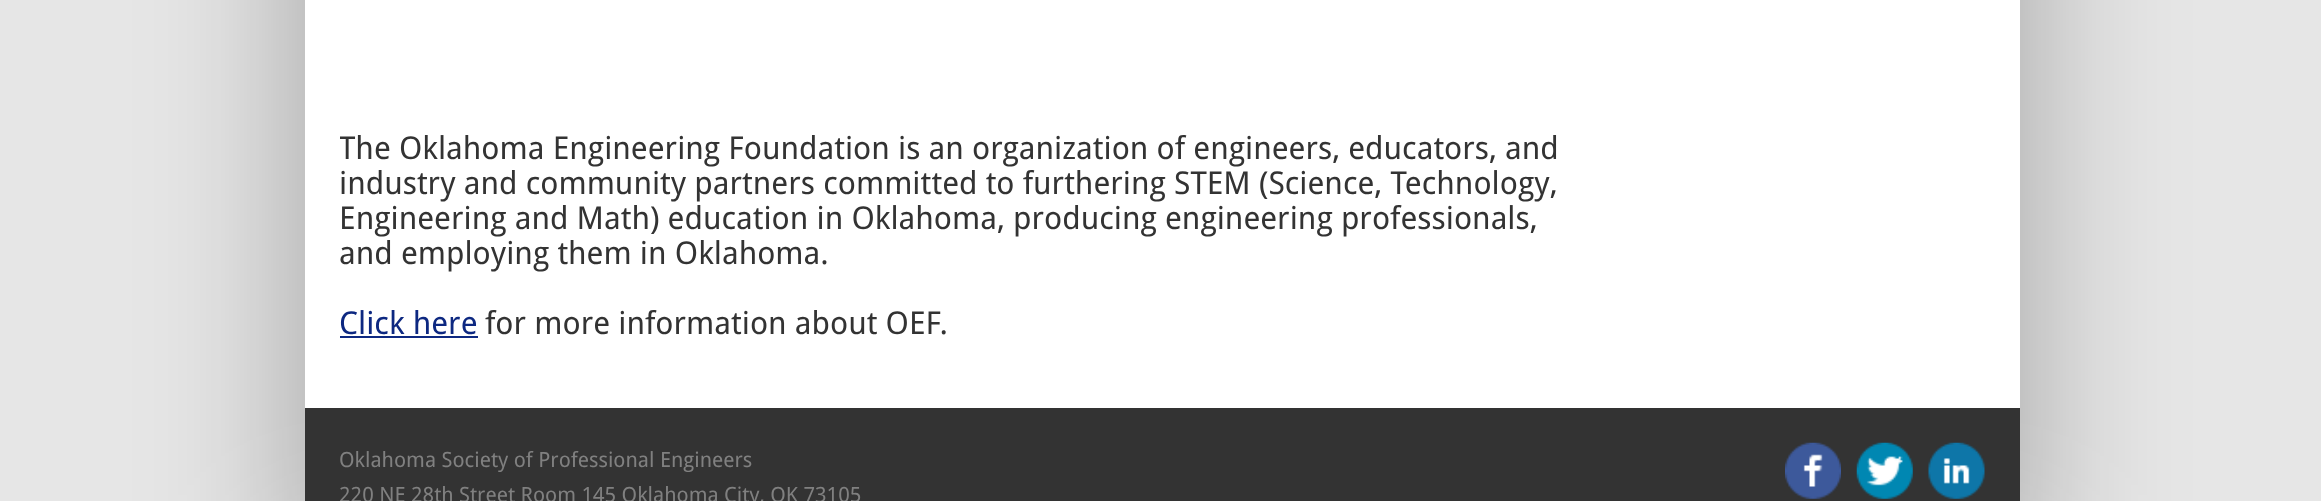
async function draw(canvas) {
  canvas.width = 2321;
  canvas.height = 501;
  const ctx = canvas.getContext('2d');
  ctx.miterLimit = 4;
  ctx.fontKerning = 'normal';
  function label(s, x, y, font, color) {
    ctx.font = font;
    ctx.fillStyle = color;
    ctx.fillText(s, x, y);
  }
  function rect(x, y, w, h, color) {
    ctx.fillStyle = color;
    ctx.fillRect(x, y, w, h);
  }
  async function image(src, x, y, w, h) {
    const img = new Image();
    img.src = src;
    await img.decode();
    ctx.drawImage(img, x, y, w, h);
  }

  rect(0, 0, 2321, 501, '#e6e6e6');
  ctx.fillStyle = '#0000004d';
  ctx.filter = 'blur(79px)';
  ctx.beginPath();
  ctx.rect(305, -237, 1715, 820);
  ctx.fill();
  ctx.filter = 'none';
  rect(305, 0, 1715, 408, '#fff');
  ctx.save();
  ctx.beginPath();
  ctx.rect(340, 0, 1225, 373);
  ctx.clip();
  label('The Oklahoma Engineering Foundation is an organization of engineers, educators, and', 339, 159, '31.5px Droid Sans', '#333');
  ctx.restore();
  label('industry and community partners committed to furthering STEM (Science, Technology,', 339, 194, '31.5px Droid Sans', '#333');
  label('Engineering and Math) education in Oklahoma, producing engineering professionals,', 339, 229, '31.5px Droid Sans', '#333');
  label('and employing them in Oklahoma.', 339, 264, '31.5px Droid Sans', '#333');
  label('Click here', 339, 334, '31.5px Droid Sans', '#0d2881');
  rect(340, 336, 138, 2, '#0d2881');
  label('for more information about OEF.', 485, 334, '31.5px Droid Sans', '#333');
  rect(305, 408, 1715, 93, '#333');
  label('Oklahoma Society of Professional Engineers', 339, 467, '21px Droid Sans', '#808080');
  label('220 NE 28th Street Room 145 Oklahoma City, OK 73105', 339, 502, '21px Droid Sans', '#808080');
  await image('assets/img1.png', 1785, 442, 56, 57);
  await image('assets/img2.png', 1856, 442, 57, 57);
  await image('assets/img3.png', 1928, 442, 57, 57);
}

draw(document.querySelector('canvas'));
